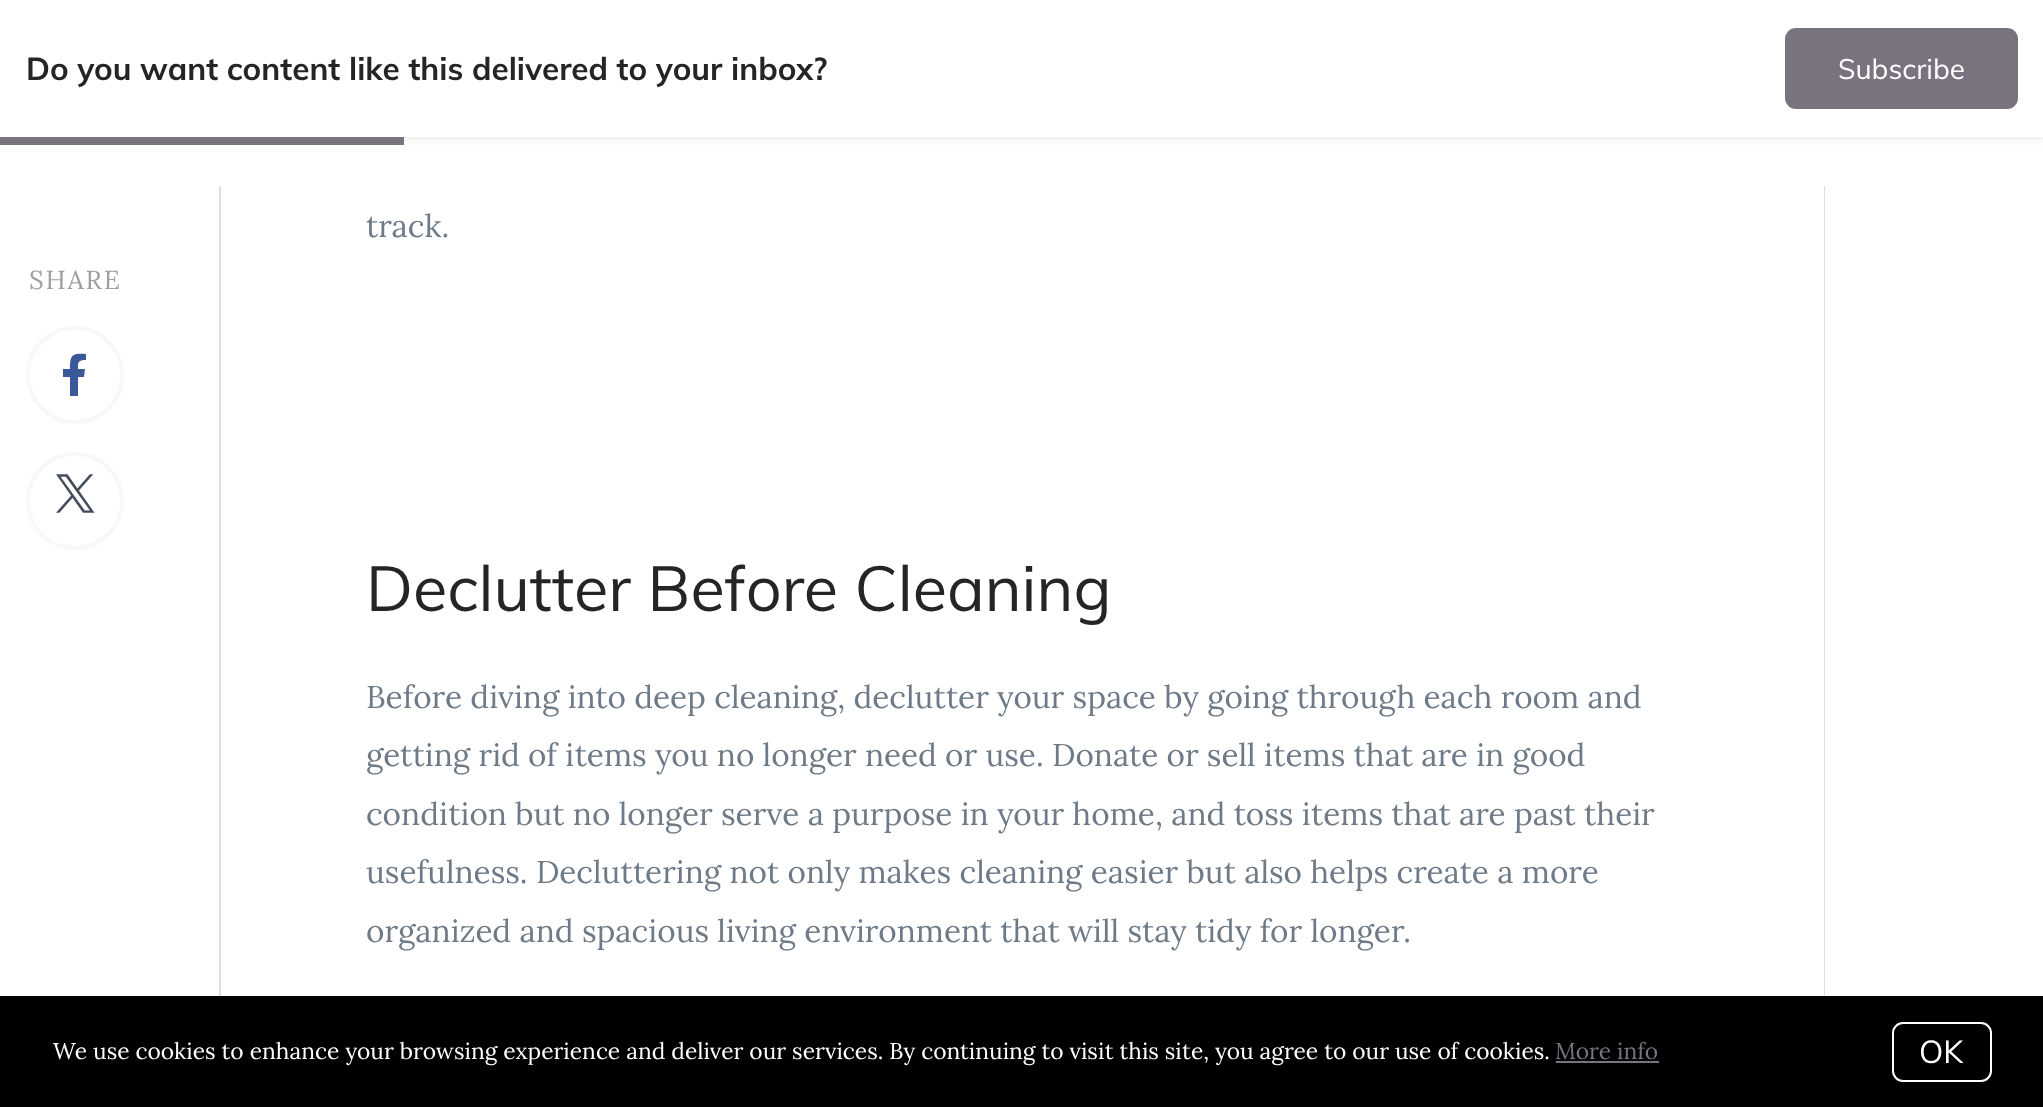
async function draw(canvas) {
  canvas.width = 2043;
  canvas.height = 1107;
  const ctx = canvas.getContext('2d');
  ctx.miterLimit = 4;
  ctx.fontKerning = 'normal';
  function label(s, x, y, font, color) {
    ctx.font = font;
    ctx.fillStyle = color;
    ctx.fillText(s, x, y);
  }
  function rect(x, y, w, h, color) {
    ctx.fillStyle = color;
    ctx.fillRect(x, y, w, h);
  }
  function roundedRect(x, y, w, h, r, color) {
    ctx.fillStyle = color;
    ctx.beginPath();
    ctx.roundRect(x, y, w, h, r);
    ctx.fill();
  }
  async function image(src, x, y, w, h) {
    const img = new Image();
    img.src = src;
    await img.decode();
    ctx.drawImage(img, x, y, w, h);
  }
  let path;

  rect(0, 0, 2043, 1107, '#fff');
  ctx.strokeStyle = '#d8dfe6';
  ctx.lineWidth = 2;
  ctx.strokeRect(220, -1, 1604, 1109);
  rect(219, 137, 1606, 49, '#fff');
  ctx.fillStyle = '#0000001a';
  ctx.filter = 'blur(4.5px)';
  ctx.beginPath();
  ctx.rect(2, 2, 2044, 136);
  ctx.fill();
  ctx.filter = 'none';
  rect(0, 0, 2043, 137, '#fff');
  label('Do you want content like this delivered to your inbox?', 26, 80, 'bold 31.5px Muli', '#252525');
  roundedRect(1785, 28, 233, 81, 11, '#79737f');
  label('Subscribe', 1838, 79, '28px Muli', '#fff');
  rect(0, 137, 404, 8, '#79737f');
  ctx.letterSpacing = '1.75px';
  label('SHARE', 29, 289, '26px Lora', '#9ca0a2');
  ctx.beginPath();
  ctx.arc(75, 375, 47, 0, 2 * Math.PI);
  ctx.strokeStyle = '#f6f8fa';
  ctx.lineWidth = 4;
  ctx.stroke();
  ctx.fillStyle = '#3b5998';
  path = new Path2D('M84 377H78V396H70V377H63V369H70C70 355 72 353 86 354V360C78 360 78 362 78 369H85Z');
  ctx.fill(path);
  ctx.beginPath();
  ctx.arc(75, 501, 47, 0, 2 * Math.PI);
  ctx.stroke();
  await image('assets/img1.png', 56, 474, 39, 39);
  rect(1823, 186, 1, 810, '#fff');
  ctx.letterSpacing = '0px';
  label('track.', 366, 237, '31.5px Lora', '#6e7a87');
  label('Declutter Before Cleaning', 366, 611, '63px Muli', '#252525');
  label('Before diving into deep cleaning, declutter your space by going through each room and', 366, 708, '31.5px Lora', '#6e7a87');
  label('getting rid of items you no longer need or use. Donate or sell items that are in good', 366, 766, '31.5px Lora', '#6e7a87');
  label('condition but no longer serve a purpose in your home, and toss items that are past their', 366, 825, '31.5px Lora', '#6e7a87');
  label('usefulness. Decluttering not only makes cleaning easier but also helps create a more', 366, 883, '31.5px Lora', '#6e7a87');
  label('organized and spacious living environment that will stay tidy for longer.', 366, 942, '31.5px Lora', '#6e7a87');
  rect(0, 996, 2043, 111, '#000');
  label('We use cookies to enhance your browsing experience and deliver our services. By continuing to visit this site, you agree to our use of cookies.', 53, 1059, '22.75px Lora', '#fff');
  label('More info', 1555, 1059, '22.75px Lora', '#79737f');
  rect(1556, 1061, 103, 2, '#79737f');
  ctx.beginPath();
  ctx.roundRect(1893, 1023, 98, 58, 10);
  ctx.strokeStyle = '#fff';
  ctx.lineWidth = 2;
  ctx.stroke();
  label('OK', 1919, 1063, '31.5px Muli', '#fff');
}

draw(document.querySelector('canvas'));
